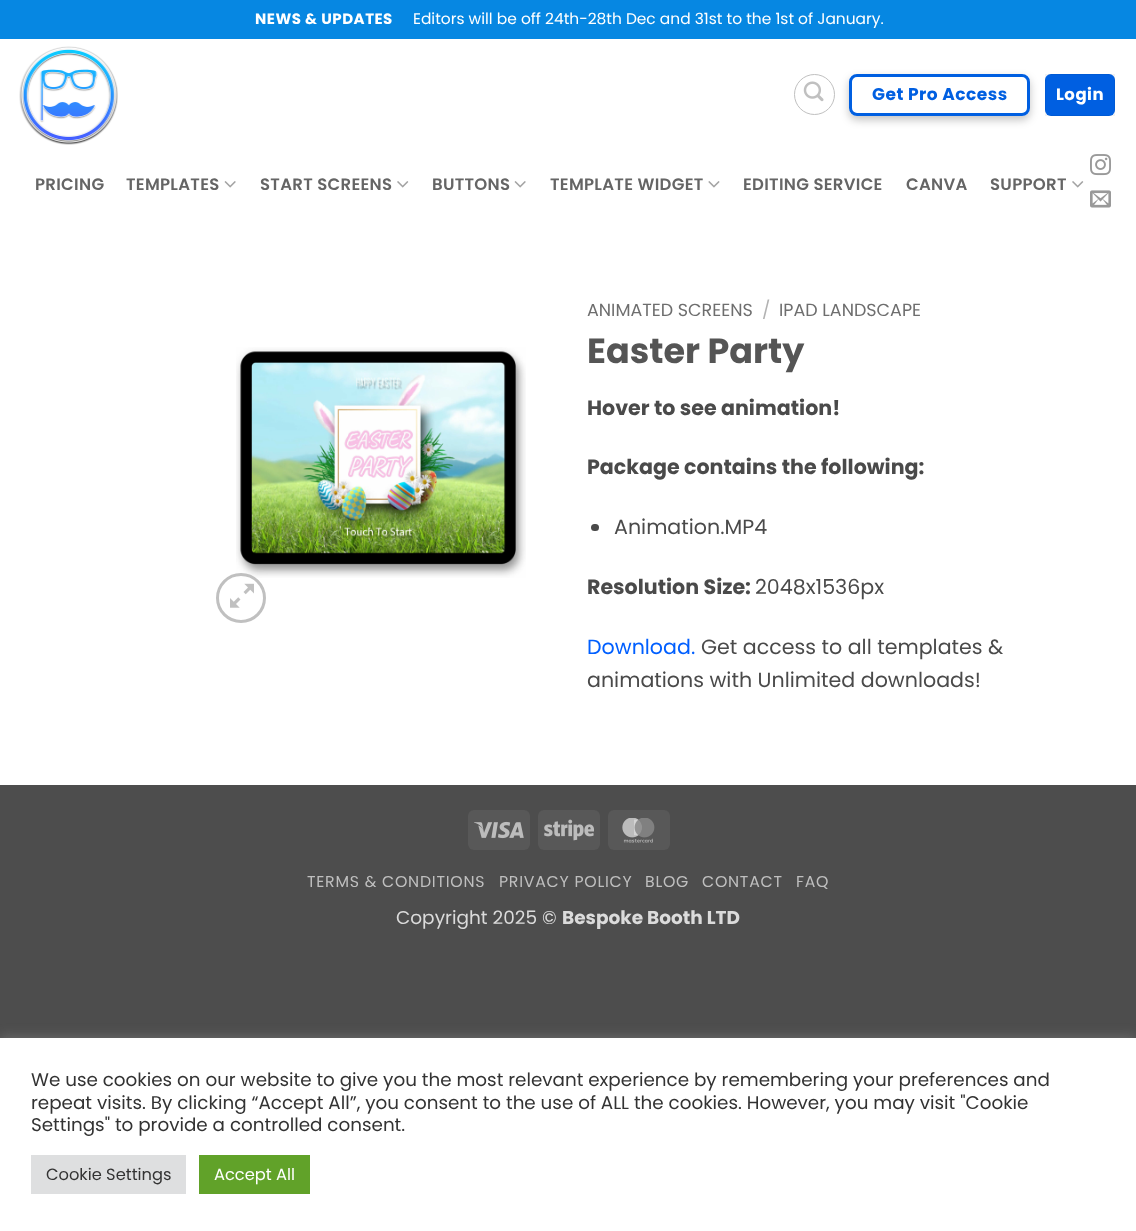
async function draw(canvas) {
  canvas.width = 1136;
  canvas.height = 1231;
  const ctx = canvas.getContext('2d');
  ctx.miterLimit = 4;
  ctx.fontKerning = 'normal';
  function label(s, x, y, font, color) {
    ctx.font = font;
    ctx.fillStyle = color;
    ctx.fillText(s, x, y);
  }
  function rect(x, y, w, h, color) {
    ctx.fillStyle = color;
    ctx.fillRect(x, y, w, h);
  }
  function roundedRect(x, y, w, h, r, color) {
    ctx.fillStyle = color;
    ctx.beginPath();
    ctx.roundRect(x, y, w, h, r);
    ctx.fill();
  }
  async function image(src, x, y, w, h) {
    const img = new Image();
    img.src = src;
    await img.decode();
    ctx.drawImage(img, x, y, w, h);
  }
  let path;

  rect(0, 0, 1136, 1231, '#4d4d4d');
  rect(0, 39, 1136, 746, '#fff');
  rect(0, 0, 1136, 39, '#0687e2');
  ctx.letterSpacing = '0.5px';
  label('NEWS & UPDATES', 255, 24, 'bold 15px Poppins', '#fff');
  ctx.letterSpacing = '0px';
  label('Editors will be off 24th-28th Dec and 31st to the 1st of January.', 413, 24, '15.45px Poppins', '#fff');
  await image('assets/img1.png', 19, 46, 99, 99);
  ctx.beginPath();
  ctx.arc(814.5, 94.5, 20, 0, 2 * Math.PI);
  ctx.strokeStyle = '#c0c0c0';
  ctx.stroke();
  await image('assets/img2.png', 803, 81, 21, 21);
  ctx.save();
  path = new Path2D('M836 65H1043V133H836ZM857 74H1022C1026.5 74 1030 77.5 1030 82V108C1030 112.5 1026.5 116 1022 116H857C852.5 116 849 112.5 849 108V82C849 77.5 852.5 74 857 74Z');
  ctx.clip(path, 'evenodd');
  ctx.fillStyle = '#0000003b';
  ctx.filter = 'blur(4px)';
  ctx.beginPath();
  ctx.roundRect(849, 78, 181, 42, 8);
  ctx.fill();
  ctx.filter = 'none';
  ctx.restore();
  ctx.beginPath();
  ctx.roundRect(850.5, 75.5, 178, 39, 6.5);
  ctx.strokeStyle = '#005fe1';
  ctx.lineWidth = 3;
  ctx.stroke();
  ctx.letterSpacing = '0.5px';
  label('Get Pro Access', 872, 100, 'bold 17px Poppins', '#005fe1');
  roundedRect(1045, 74, 70, 42, 6, '#005fe1');
  ctx.strokeStyle = '#0000000d';
  ctx.lineWidth = 1;
  ctx.strokeRect(1045.5, 74.5, 69, 41);
  label('Login', 1056, 100, 'bold 16.5px Poppins', '#fff');
  ctx.letterSpacing = '0.3px';
  label('PRICING', 35, 190, '600 16.5px Poppins', '#656565');
  label('TEMPLATES', 126, 190, '600 16.5px Poppins', '#656565');
  await image('assets/img3.png', 224, 181, 12, 7);
  label('START SCREENS', 260, 190, '600 16.5px Poppins', '#656565');
  await image('assets/img4.png', 397, 181, 12, 7);
  label('BUTTONS', 432, 190, '600 16.5px Poppins', '#656565');
  await image('assets/img3.png', 514, 181, 12, 7);
  label('TEMPLATE WIDGET', 550, 190, '600 16.5px Poppins', '#656565');
  await image('assets/img5.png', 708, 181, 12, 7);
  label('EDITING SERVICE', 743, 190, '600 16.5px Poppins', '#656565');
  label('CANVA', 906, 190, '600 16.5px Poppins', '#656565');
  label('SUPPORT', 990, 190, '600 16.5px Poppins', '#656565');
  await image('assets/img4.png', 1072, 181, 12, 7);
  await image('assets/img6.png', 1090, 154, 21, 22);
  await image('assets/img7.png', 1090, 190, 21, 18);
  await image('assets/img8.png', 236, 347, 290, 231);
  ctx.beginPath();
  ctx.arc(241, 598, 23.5, 0, 2 * Math.PI);
  ctx.strokeStyle = '#c0c0c0';
  ctx.lineWidth = 3;
  ctx.stroke();
  await image('assets/img9.png', 230, 583, 24, 25);
  ctx.letterSpacing = '0px';
  label('ANIMATED SCREENS', 587, 316, '17.5px Poppins', '#6e6e6e');
  label('/', 762, 316, '17.5px Poppins', '#b2b2b2');
  label('IPAD LANDSCAPE', 779, 316, '17.5px Poppins', '#6e6e6e');
  label('Easter Party', 587, 363, 'bold 35px Poppins', '#555');
  label('Hover to see animation!', 587, 415, 'bold 20.6px Poppins', '#4a4a4a');
  label('Package contains the following:', 587, 474, 'bold 20.6px Poppins', '#4a4a4a');
  roundedRect(591, 524, 8, 7, 3.5, '#4a4a4a');
  label('Animation.MP4', 614, 534, '20.6px Poppins', '#4a4a4a');
  label('Resolution Size:', 587, 594, 'bold 20.6px Poppins', '#4a4a4a');
  label('2048x1536px', 755, 594, '20.6px Poppins', '#4a4a4a');
  label('Download.', 587, 654, '20.6px Poppins', '#005fff');
  label('Get access to all templates &', 701, 654, '20.6px Poppins', '#4a4a4a');
  label('animations with Unlimited downloads!', 587, 687, '20.6px Poppins', '#4a4a4a');
  roundedRect(468, 810, 62, 40, 6, '#585858');
  await image('assets/img10.png', 474, 821, 50, 18);
  roundedRect(538, 810, 62, 40, 6, '#585858');
  await image('assets/img11.png', 544, 819, 50, 22);
  roundedRect(608, 810, 62, 40, 6, '#585858');
  await image('assets/img12.png', 622, 818, 33, 25);
  ctx.letterSpacing = '0.75px';
  label('TERMS & CONDITIONS', 307, 887, '15.75px Poppins', '#bfbfbf');
  label('PRIVACY POLICY', 499, 887, '15.75px Poppins', '#bfbfbf');
  label('BLOG', 645, 887, '15.75px Poppins', '#bfbfbf');
  label('CONTACT', 702, 887, '15.75px Poppins', '#bfbfbf');
  label('FAQ', 796, 887, '15.75px Poppins', '#bfbfbf');
  ctx.letterSpacing = '0px';
  label('Copyright 2025 ©', 396, 924, '18.5px Poppins', '#dbdbdb');
  label('Bespoke Booth LTD', 562, 924, 'bold 18.5px Poppins', '#dbdbdb');
  ctx.fillStyle = '#acabab4d';
  ctx.filter = 'blur(6px)';
  ctx.beginPath();
  ctx.rect(0, 1036, 1136, 194);
  ctx.fill();
  ctx.filter = 'none';
  rect(0, 1038, 1136, 193, '#fff');
  label('We use cookies on our website to give you the most relevant experience by remembering your preferences and', 31, 1086, '18.33px Poppins', '#333');
  label('repeat visits. By clicking “Accept All”, you consent to the use of ALL the cookies. However, you may visit "Cookie', 31, 1109, '18.33px Poppins', '#333');
  label('Settings" to provide a controlled consent.', 31, 1131, '18.33px Poppins', '#333');
  rect(31, 1155, 155, 39, '#dedfe0');
  label('Cookie Settings', 46, 1180, '16.25px Poppins', '#333');
  rect(199, 1155, 111, 39, '#61a229');
  label('Accept All', 214, 1180, '16.25px Poppins', '#fff');
}

draw(document.querySelector('canvas'));
